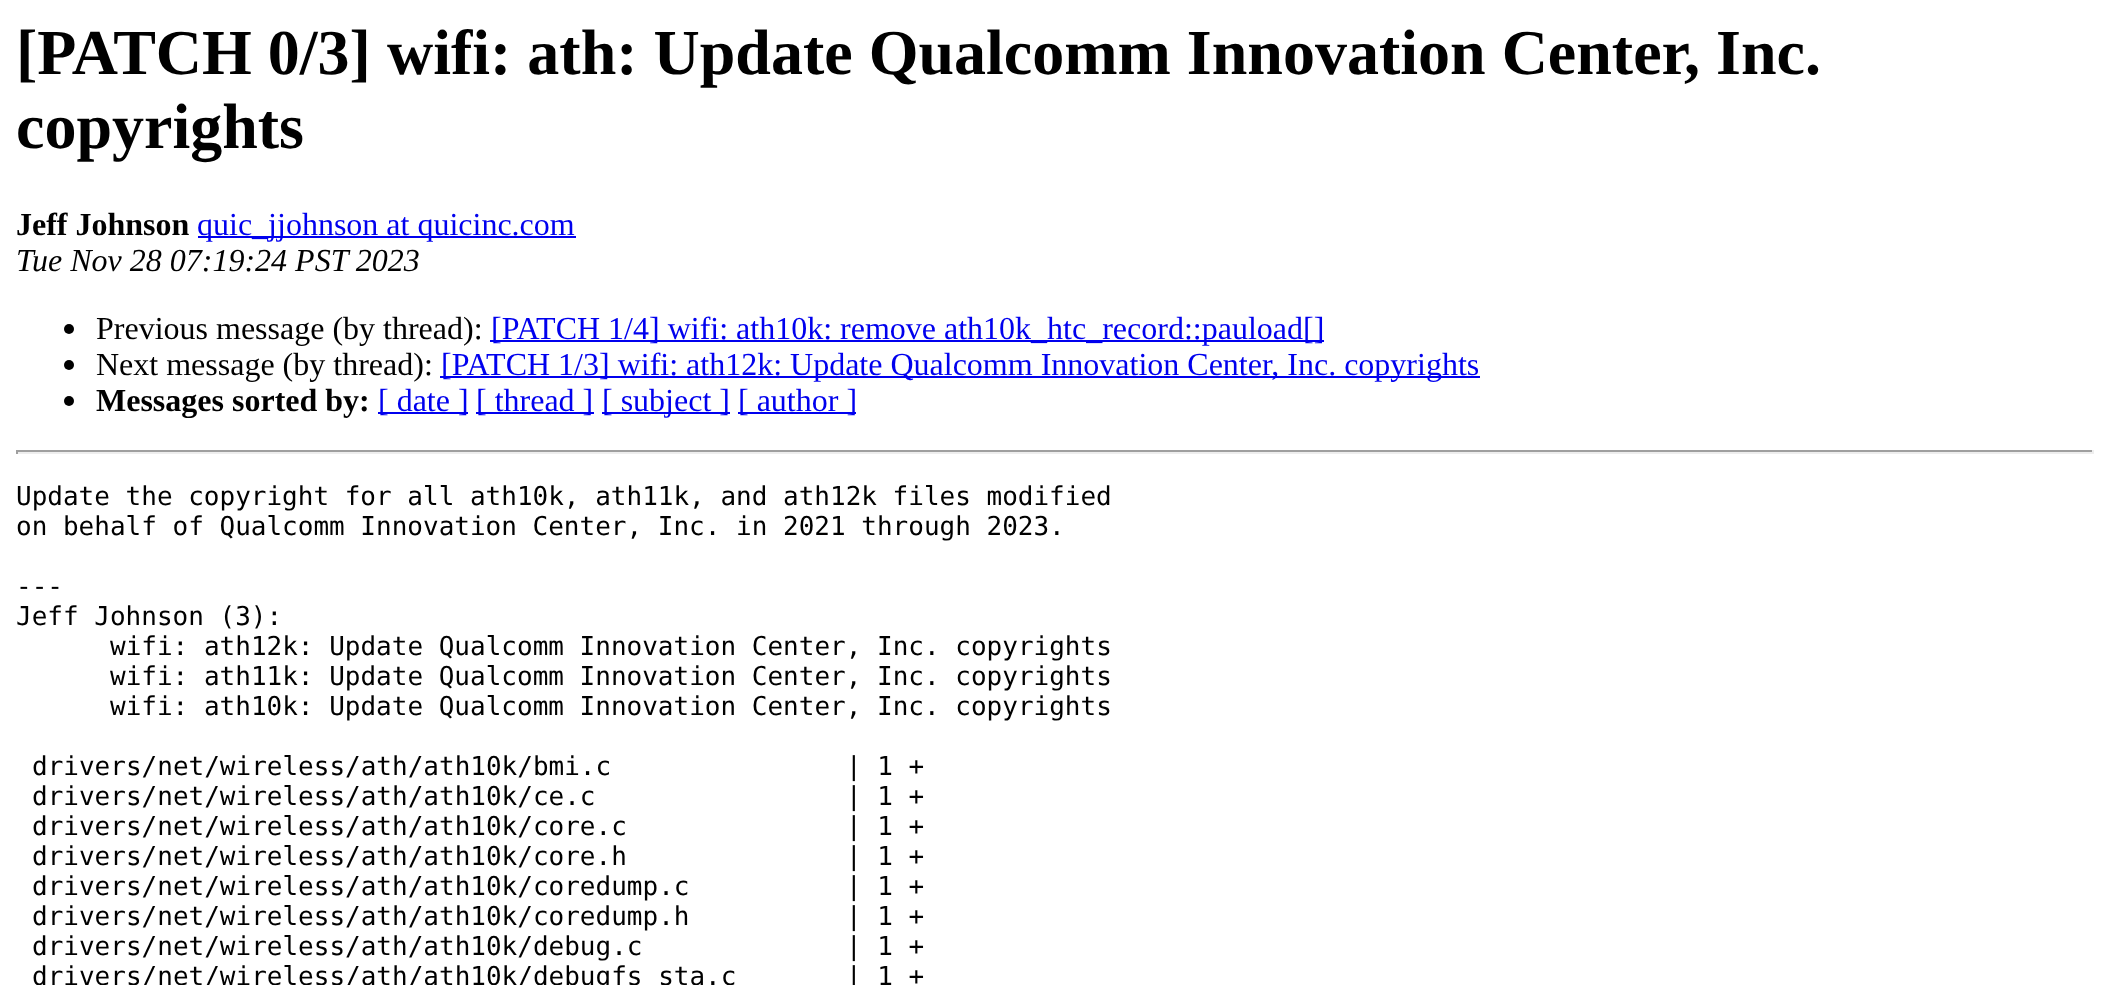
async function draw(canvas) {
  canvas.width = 2110;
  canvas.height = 985;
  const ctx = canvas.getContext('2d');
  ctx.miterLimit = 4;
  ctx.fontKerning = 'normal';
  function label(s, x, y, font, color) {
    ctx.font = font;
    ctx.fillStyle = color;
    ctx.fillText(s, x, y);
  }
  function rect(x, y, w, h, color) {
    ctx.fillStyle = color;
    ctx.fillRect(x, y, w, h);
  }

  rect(0, 0, 2110, 985, '#fff');
  label('[PATCH 0/3] wifi: ath: Update Qualcomm Innovation Center, Inc.', 16, 74, 'bold 64px Liberation Serif', '#000');
  label('copyrights', 16, 148, 'bold 64px Liberation Serif', '#000');
  label('Jeff Johnson', 16, 235, 'bold 32px Liberation Serif', '#000');
  rect(198, 236, 378, 2, '#00e');
  label('quic_jjohnson at quicinc.com', 197, 235, '32px Liberation Serif', '#00e');
  label('Tue Nov 28 07:19:24 PST 2023', 16, 271, 'italic 32px Liberation Serif', '#000');
  ctx.beginPath();
  ctx.arc(69, 329, 5, 0, 2 * Math.PI);
  ctx.fill();
  label('Previous message (by thread):', 96, 339, '32px Liberation Serif', '#000');
  rect(490, 340, 834, 2, '#00e');
  label('[PATCH 1/4] wifi: ath10k: remove ath10k_htc_record::pauload[]', 491, 339, '32px Liberation Serif', '#00e');
  ctx.fillStyle = '#000';
  ctx.beginPath();
  ctx.arc(69, 365, 5, 0, 2 * Math.PI);
  ctx.fill();
  label('Next message (by thread):', 96, 375, '32px Liberation Serif', '#000');
  rect(440, 376, 1040, 2, '#00e');
  label('[PATCH 1/3] wifi: ath12k: Update Qualcomm Innovation Center, Inc. copyrights', 441, 375, '32px Liberation Serif', '#00e');
  ctx.fillStyle = '#000';
  ctx.beginPath();
  ctx.arc(69, 401, 5, 0, 2 * Math.PI);
  ctx.fill();
  label('Messages sorted by:', 96, 411, 'bold 32px Liberation Serif', '#000');
  rect(378, 412, 90, 2, '#00e');
  label('[ date ]', 378, 411, '32px Liberation Serif', '#00e');
  rect(476, 412, 118, 2, '#00e');
  label('[ thread ]', 476, 411, '32px Liberation Serif', '#00e');
  rect(602, 412, 128, 2, '#00e');
  label('[ subject ]', 602, 411, '32px Liberation Serif', '#00e');
  rect(738, 412, 118, 2, '#00e');
  label('[ author ]', 738, 411, '32px Liberation Serif', '#00e');
  rect(16, 450, 2078, 2, '#9f9f9f');
  rect(2092, 450, 2, 4, '#eee');
  rect(16, 452, 2078, 2, '#eee');
  rect(16, 450, 2, 4, '#9f9f9f');
  label('Update the copyright for all ath10k, ath11k, and ath12k files modified', 16, 505, '26px DejaVu Sans Mono', '#000');
  label('on behalf of Qualcomm Innovation Center, Inc. in 2021 through 2023.', 16, 535, '26px DejaVu Sans Mono', '#000');
  label('---', 16, 595, '26px DejaVu Sans Mono', '#000');
  label('Jeff Johnson (3):', 16, 625, '26px DejaVu Sans Mono', '#000');
  label('wifi: ath12k: Update Qualcomm Innovation Center, Inc. copyrights', 110, 655, '26px DejaVu Sans Mono', '#000');
  label('wifi: ath11k: Update Qualcomm Innovation Center, Inc. copyrights', 110, 685, '26px DejaVu Sans Mono', '#000');
  label('wifi: ath10k: Update Qualcomm Innovation Center, Inc. copyrights', 110, 715, '26px DejaVu Sans Mono', '#000');
  label('drivers/net/wireless/ath/ath10k/bmi.c               | 1 +', 32, 775, '26px DejaVu Sans Mono', '#000');
  label('drivers/net/wireless/ath/ath10k/ce.c                | 1 +', 32, 805, '26px DejaVu Sans Mono', '#000');
  label('drivers/net/wireless/ath/ath10k/core.c              | 1 +', 32, 835, '26px DejaVu Sans Mono', '#000');
  label('drivers/net/wireless/ath/ath10k/core.h              | 1 +', 32, 865, '26px DejaVu Sans Mono', '#000');
  label('drivers/net/wireless/ath/ath10k/coredump.c          | 1 +', 32, 895, '26px DejaVu Sans Mono', '#000');
  label('drivers/net/wireless/ath/ath10k/coredump.h          | 1 +', 32, 925, '26px DejaVu Sans Mono', '#000');
  label('drivers/net/wireless/ath/ath10k/debug.c             | 1 +', 32, 955, '26px DejaVu Sans Mono', '#000');
  label('drivers/net/wireless/ath/ath10k/debugfs_sta.c       | 1 +', 32, 985, '26px DejaVu Sans Mono', '#000');
}

draw(document.querySelector('canvas'));
